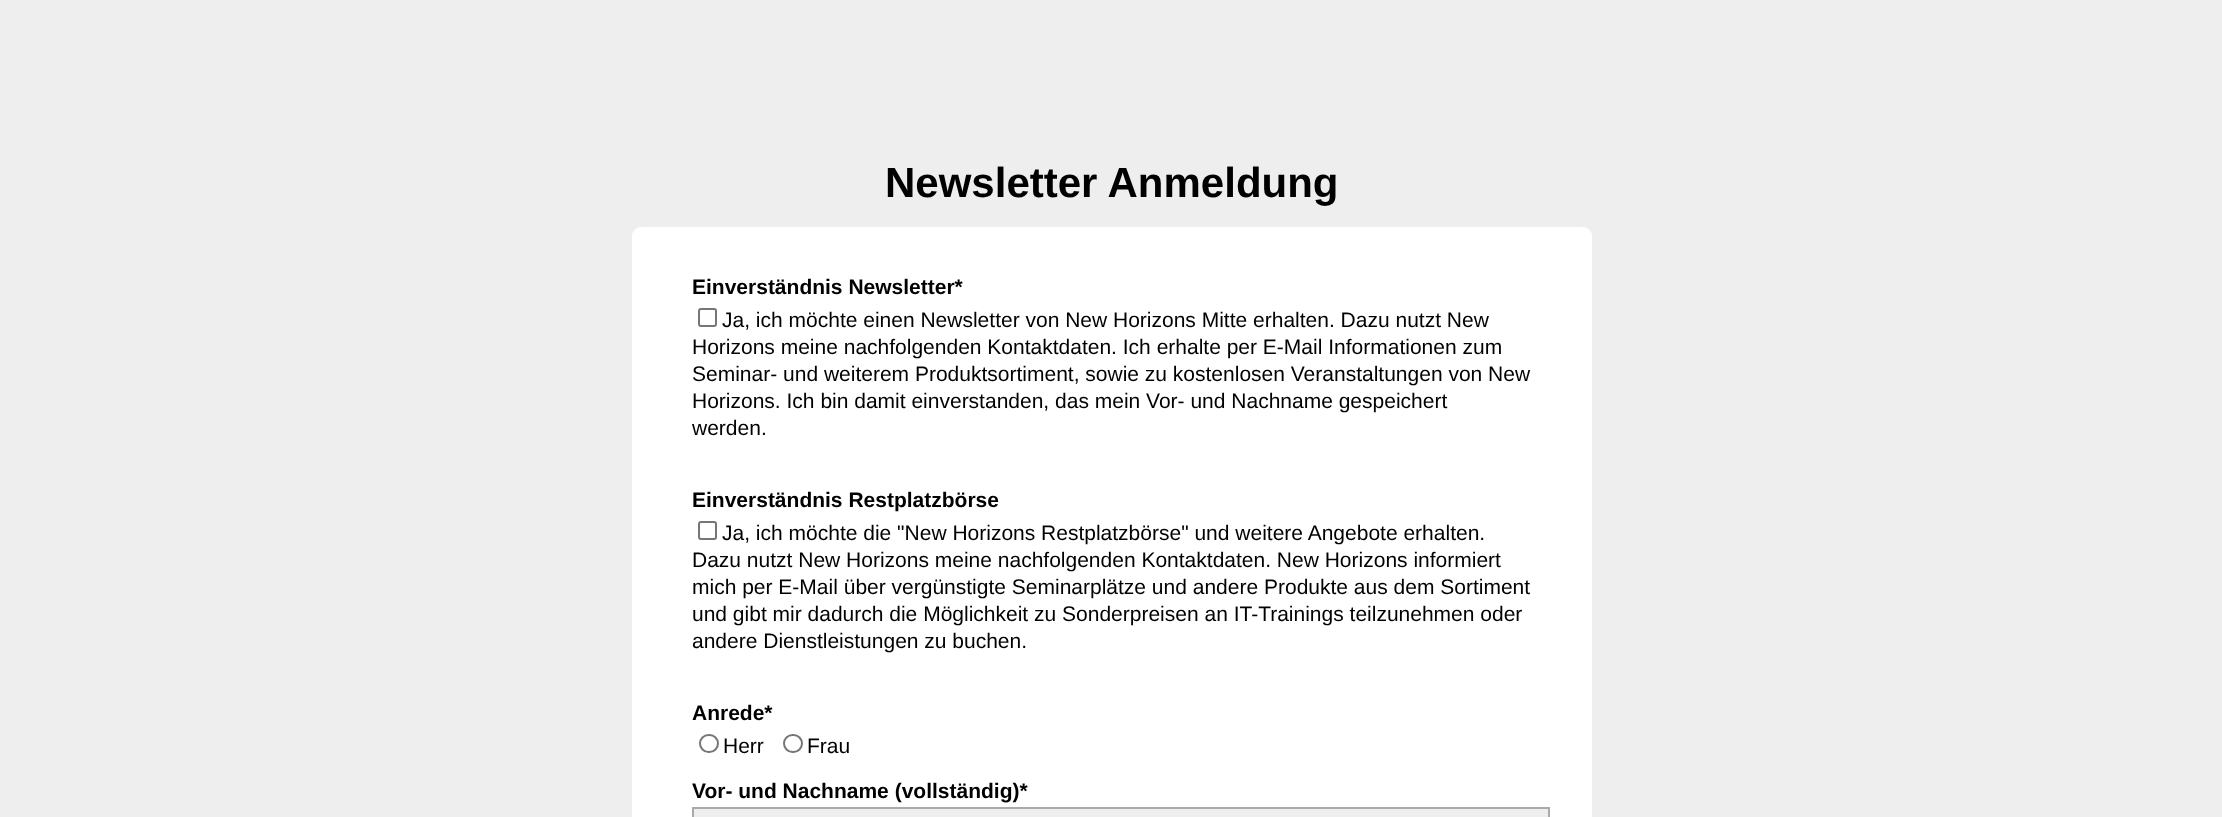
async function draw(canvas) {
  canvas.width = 2222;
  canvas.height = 817;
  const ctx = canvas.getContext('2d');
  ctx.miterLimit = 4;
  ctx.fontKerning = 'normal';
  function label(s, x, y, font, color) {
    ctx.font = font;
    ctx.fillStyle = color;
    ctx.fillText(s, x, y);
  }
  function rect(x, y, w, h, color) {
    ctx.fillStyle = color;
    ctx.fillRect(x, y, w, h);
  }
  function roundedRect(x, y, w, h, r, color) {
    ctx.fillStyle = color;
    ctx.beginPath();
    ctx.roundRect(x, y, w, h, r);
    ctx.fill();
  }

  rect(0, 0, 2222, 817, '#eee');
  label('Newsletter Anmeldung', 885, 197, 'bold 42px Liberation Sans', '#000');
  roundedRect(632, 227, 960, 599, 9, '#fff');
  label('Einverständnis Newsletter*', 692, 294, 'bold 21px Liberation Sans', '#000');
  ctx.beginPath();
  ctx.roundRect(699, 309, 17, 17, 2);
  ctx.strokeStyle = '#767676';
  ctx.lineWidth = 2;
  ctx.stroke();
  label('Ja, ich möchte einen Newsletter von New Horizons Mitte erhalten. Dazu nutzt New', 722, 327, '21px Liberation Sans', '#000');
  label('Horizons meine nachfolgenden Kontaktdaten. Ich erhalte per E-Mail Informationen zum', 692, 354, '21px Liberation Sans', '#000');
  label('Seminar- und weiterem Produktsortiment, sowie zu kostenlosen Veranstaltungen von New', 692, 381, '21px Liberation Sans', '#000');
  label('Horizons. Ich bin damit einverstanden, das mein Vor- und Nachname gespeichert', 692, 408, '21px Liberation Sans', '#000');
  label('werden.', 692, 435, '21px Liberation Sans', '#000');
  label('Einverständnis Restplatzbörse', 692, 507, 'bold 21px Liberation Sans', '#000');
  ctx.beginPath();
  ctx.roundRect(699, 522, 17, 17, 2);
  ctx.stroke();
  label('Ja, ich möchte die "New Horizons Restplatzbörse" und weitere Angebote erhalten.', 722, 540, '21px Liberation Sans', '#000');
  label('Dazu nutzt New Horizons meine nachfolgenden Kontaktdaten. New Horizons informiert', 692, 567, '21px Liberation Sans', '#000');
  label('mich per E-Mail über vergünstigte Seminarplätze und andere Produkte aus dem Sortiment', 692, 594, '21px Liberation Sans', '#000');
  label('und gibt mir dadurch die Möglichkeit zu Sonderpreisen an IT-Trainings teilzunehmen oder', 692, 621, '21px Liberation Sans', '#000');
  label('andere Dienstleistungen zu buchen.', 692, 648, '21px Liberation Sans', '#000');
  label('Anrede*', 692, 720, 'bold 21px Liberation Sans', '#000');
  ctx.beginPath();
  ctx.roundRect(700, 735, 18, 17, 8.5);
  ctx.stroke();
  label('Herr', 723, 753, '21px Liberation Sans', '#000');
  ctx.beginPath();
  ctx.roundRect(784, 735, 18, 17, 8.5);
  ctx.stroke();
  label('Frau', 807, 753, '21px Liberation Sans', '#000');
  label('Vor- und Nachname (vollständig)*', 692, 798, 'bold 21px Liberation Sans', '#000');
  ctx.fillStyle = '#eee';
  ctx.beginPath();
  ctx.rect(693, 808, 856, 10);
  ctx.fill();
  ctx.strokeStyle = '#aaa';
  ctx.stroke();
}

draw(document.querySelector('canvas'));
